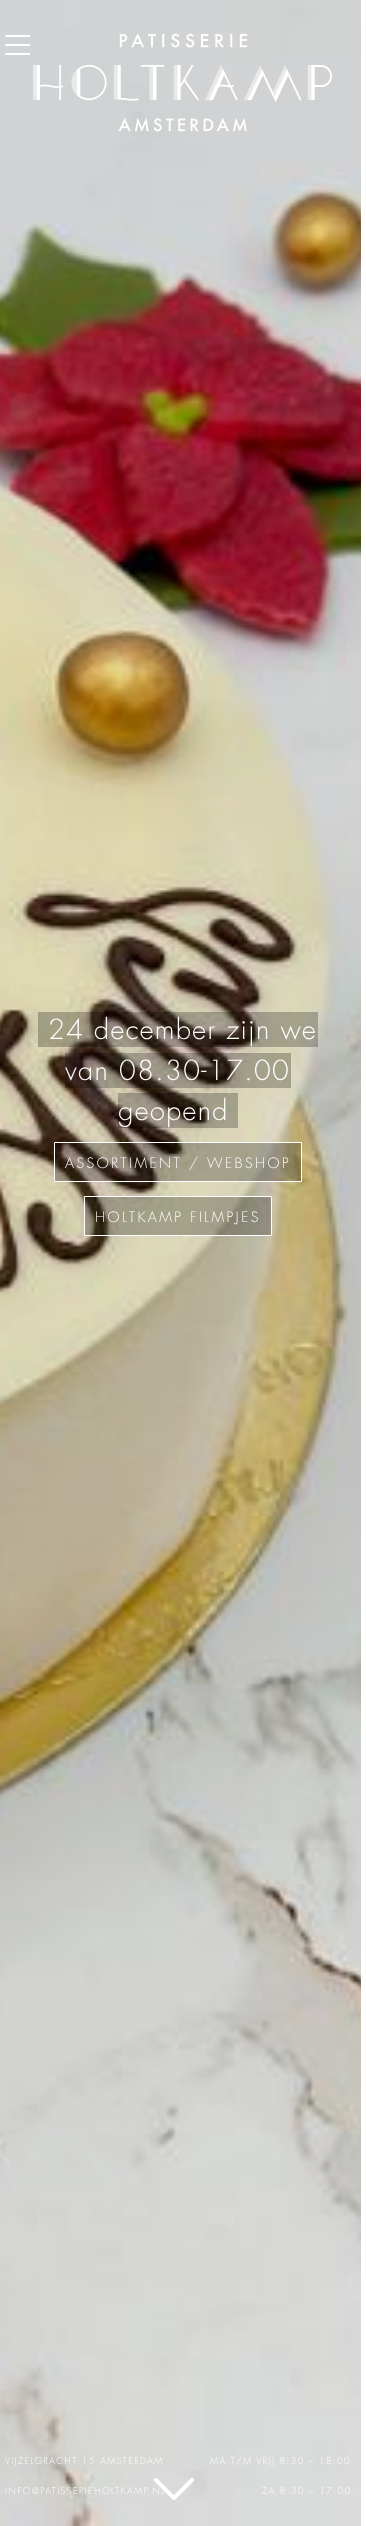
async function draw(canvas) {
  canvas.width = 366;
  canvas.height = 2526;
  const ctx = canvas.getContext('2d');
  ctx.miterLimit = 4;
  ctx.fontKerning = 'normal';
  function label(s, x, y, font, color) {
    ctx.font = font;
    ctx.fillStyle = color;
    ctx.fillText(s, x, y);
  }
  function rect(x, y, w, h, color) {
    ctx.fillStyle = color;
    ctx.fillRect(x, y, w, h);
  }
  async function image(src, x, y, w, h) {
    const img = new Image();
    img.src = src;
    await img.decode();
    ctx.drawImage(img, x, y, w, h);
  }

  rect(0, 0, 366, 2526, '#fff');
  await image('assets/img3.png', 0, 0, 361, 2526);
  await image('assets/img1.png', 5, 35, 25, 20);
  await image('assets/img2.png', 33, 33, 299, 99);
  rect(38, 1012, 280, 35, '#00000040');
  ctx.letterSpacing = '1.4px';
  label('24 december zijn we', 48, 1039, '300 27px Futura', '#fff');
  rect(65, 1053, 226, 35, '#00000040');
  label('van 08.30-17.00', 65, 1080, '300 27px Futura', '#fff');
  rect(118, 1093, 120, 35, '#00000040');
  label('geopend', 118, 1120, '300 27px Futura', '#fff');
  ctx.fillStyle = '#00000040';
  ctx.beginPath();
  ctx.rect(54.5, 1142.5, 247, 39);
  ctx.fill();
  ctx.strokeStyle = '#fff';
  ctx.stroke();
  ctx.letterSpacing = '2.5px';
  label('ASSORTIMENT / WEBSHOP', 65, 1168, '300 14px Futura', '#fff');
  ctx.fillStyle = '#00000040';
  ctx.beginPath();
  ctx.rect(84.5, 1196.5, 187, 39);
  ctx.fill();
  ctx.stroke();
  label('HOLTKAMP FILMPJES', 95, 1222, '300 14px Futura', '#fff');
  ctx.letterSpacing = '1.4px';
  label('VIJZELGRACHT 15 AMSTERDAM', 5, 2464, '300 9px Futura', '#fff');
  label('INFO@PATISSERIEHOLTKAMP.NL', 5, 2494, '300 9px Futura', '#fff');
  await image('assets/img4.png', 154, 2478, 40, 22);
  label('MA T/M VRIJ 8:30 – 18:00', 210, 2464, '300 9px Futura', '#fff');
  label('ZA 8:30 – 17:00', 262, 2494, '300 9px Futura', '#fff');
}

draw(document.querySelector('canvas'));
